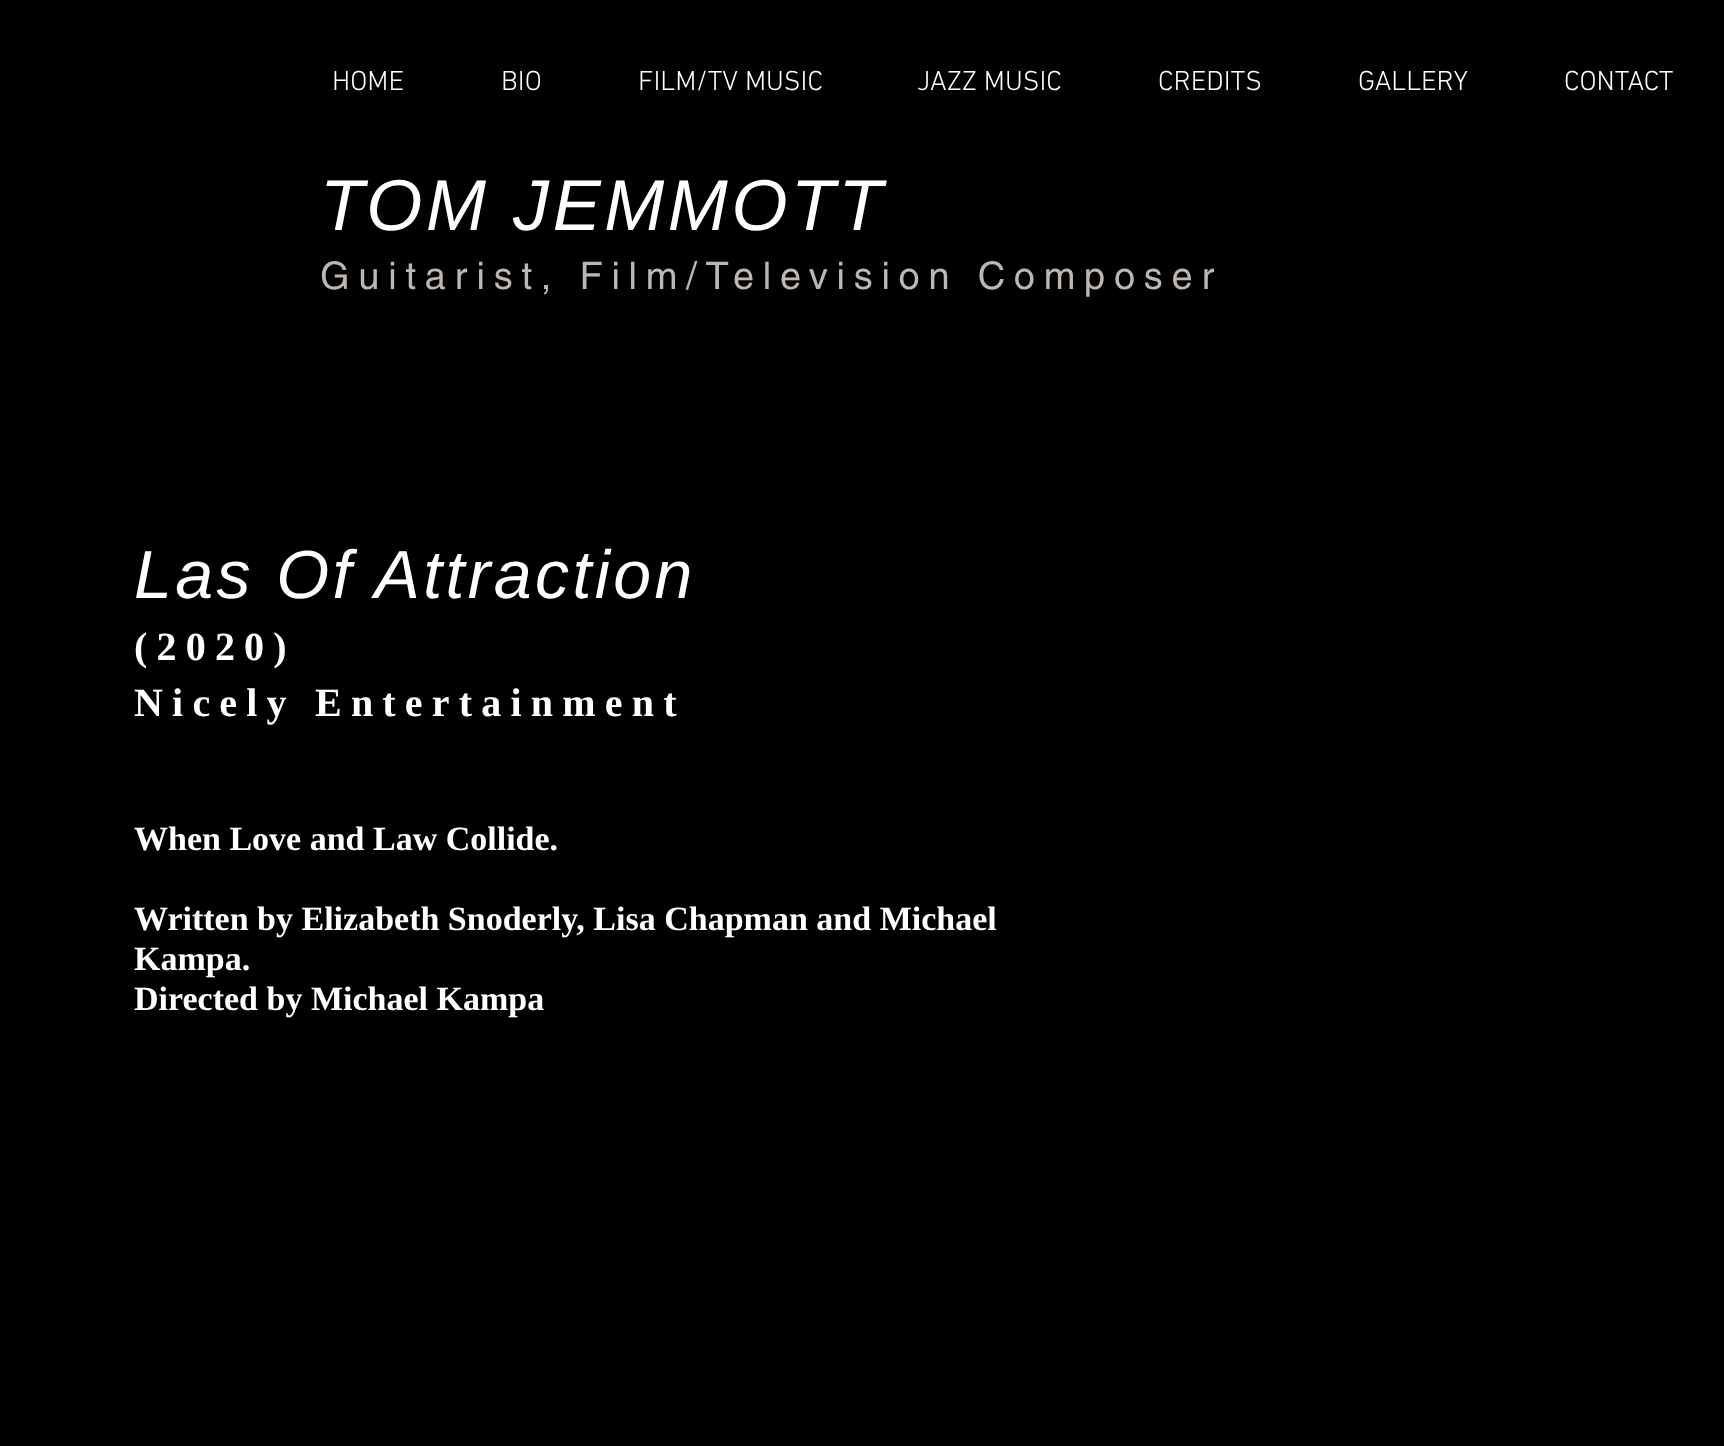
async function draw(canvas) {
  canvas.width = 1724;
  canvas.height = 1446;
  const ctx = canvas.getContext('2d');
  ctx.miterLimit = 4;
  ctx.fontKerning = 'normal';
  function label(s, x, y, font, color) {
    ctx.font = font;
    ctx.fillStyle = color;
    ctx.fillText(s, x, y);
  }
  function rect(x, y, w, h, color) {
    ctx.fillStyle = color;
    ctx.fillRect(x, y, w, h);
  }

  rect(0, 0, 1724, 1446, '#000');
  label('HOME', 332, 90, '300 28px "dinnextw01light"', '#fff');
  label('BIO', 501, 90, '300 28px "dinnextw01light"', '#fff');
  label('FILM/TV MUSIC', 638, 90, '300 28px "dinnextw01light"', '#fff');
  label('JAZZ MUSIC', 917, 90, '300 28px "dinnextw01light"', '#fff');
  label('CREDITS', 1158, 90, '300 28px "dinnextw01light"', '#fff');
  label('GALLERY', 1358, 90, '300 28px "dinnextw01light"', '#fff');
  label('CONTACT', 1564, 90, '300 28px "dinnextw01light"', '#fff');
  ctx.letterSpacing = '3.6px';
  label('TOM JEMMOTT', 320, 230, 'italic 72px Liberation Sans', '#fff');
  ctx.letterSpacing = '8.75px';
  label('Guitarist, Film/Television Composer', 320, 289, '38px helvetica', '#beb6b0');
  ctx.letterSpacing = '3.4px';
  label('Las Of Attraction', 134, 598, 'italic 68px Liberation Sans', '#fff');
  ctx.letterSpacing = '9.2px';
  label('(2020)', 134, 660, 'bold 40px Liberation Serif', '#fff');
  label('Nicely Entertainment', 134, 716, 'bold 40px Liberation Serif', '#fff');
  ctx.letterSpacing = '0px';
  label('When Love and Law Collide.', 134, 850, 'bold 34px Liberation Serif', '#fff');
  label('Written by Elizabeth Snoderly, Lisa Chapman and Michael', 134, 930, 'bold 34px Liberation Serif', '#fff');
  label('Kampa.', 134, 970, 'bold 34px Liberation Serif', '#fff');
  label('Directed by Michael Kampa', 134, 1010, 'bold 34px Liberation Serif', '#fff');
}

draw(document.querySelector('canvas'));
